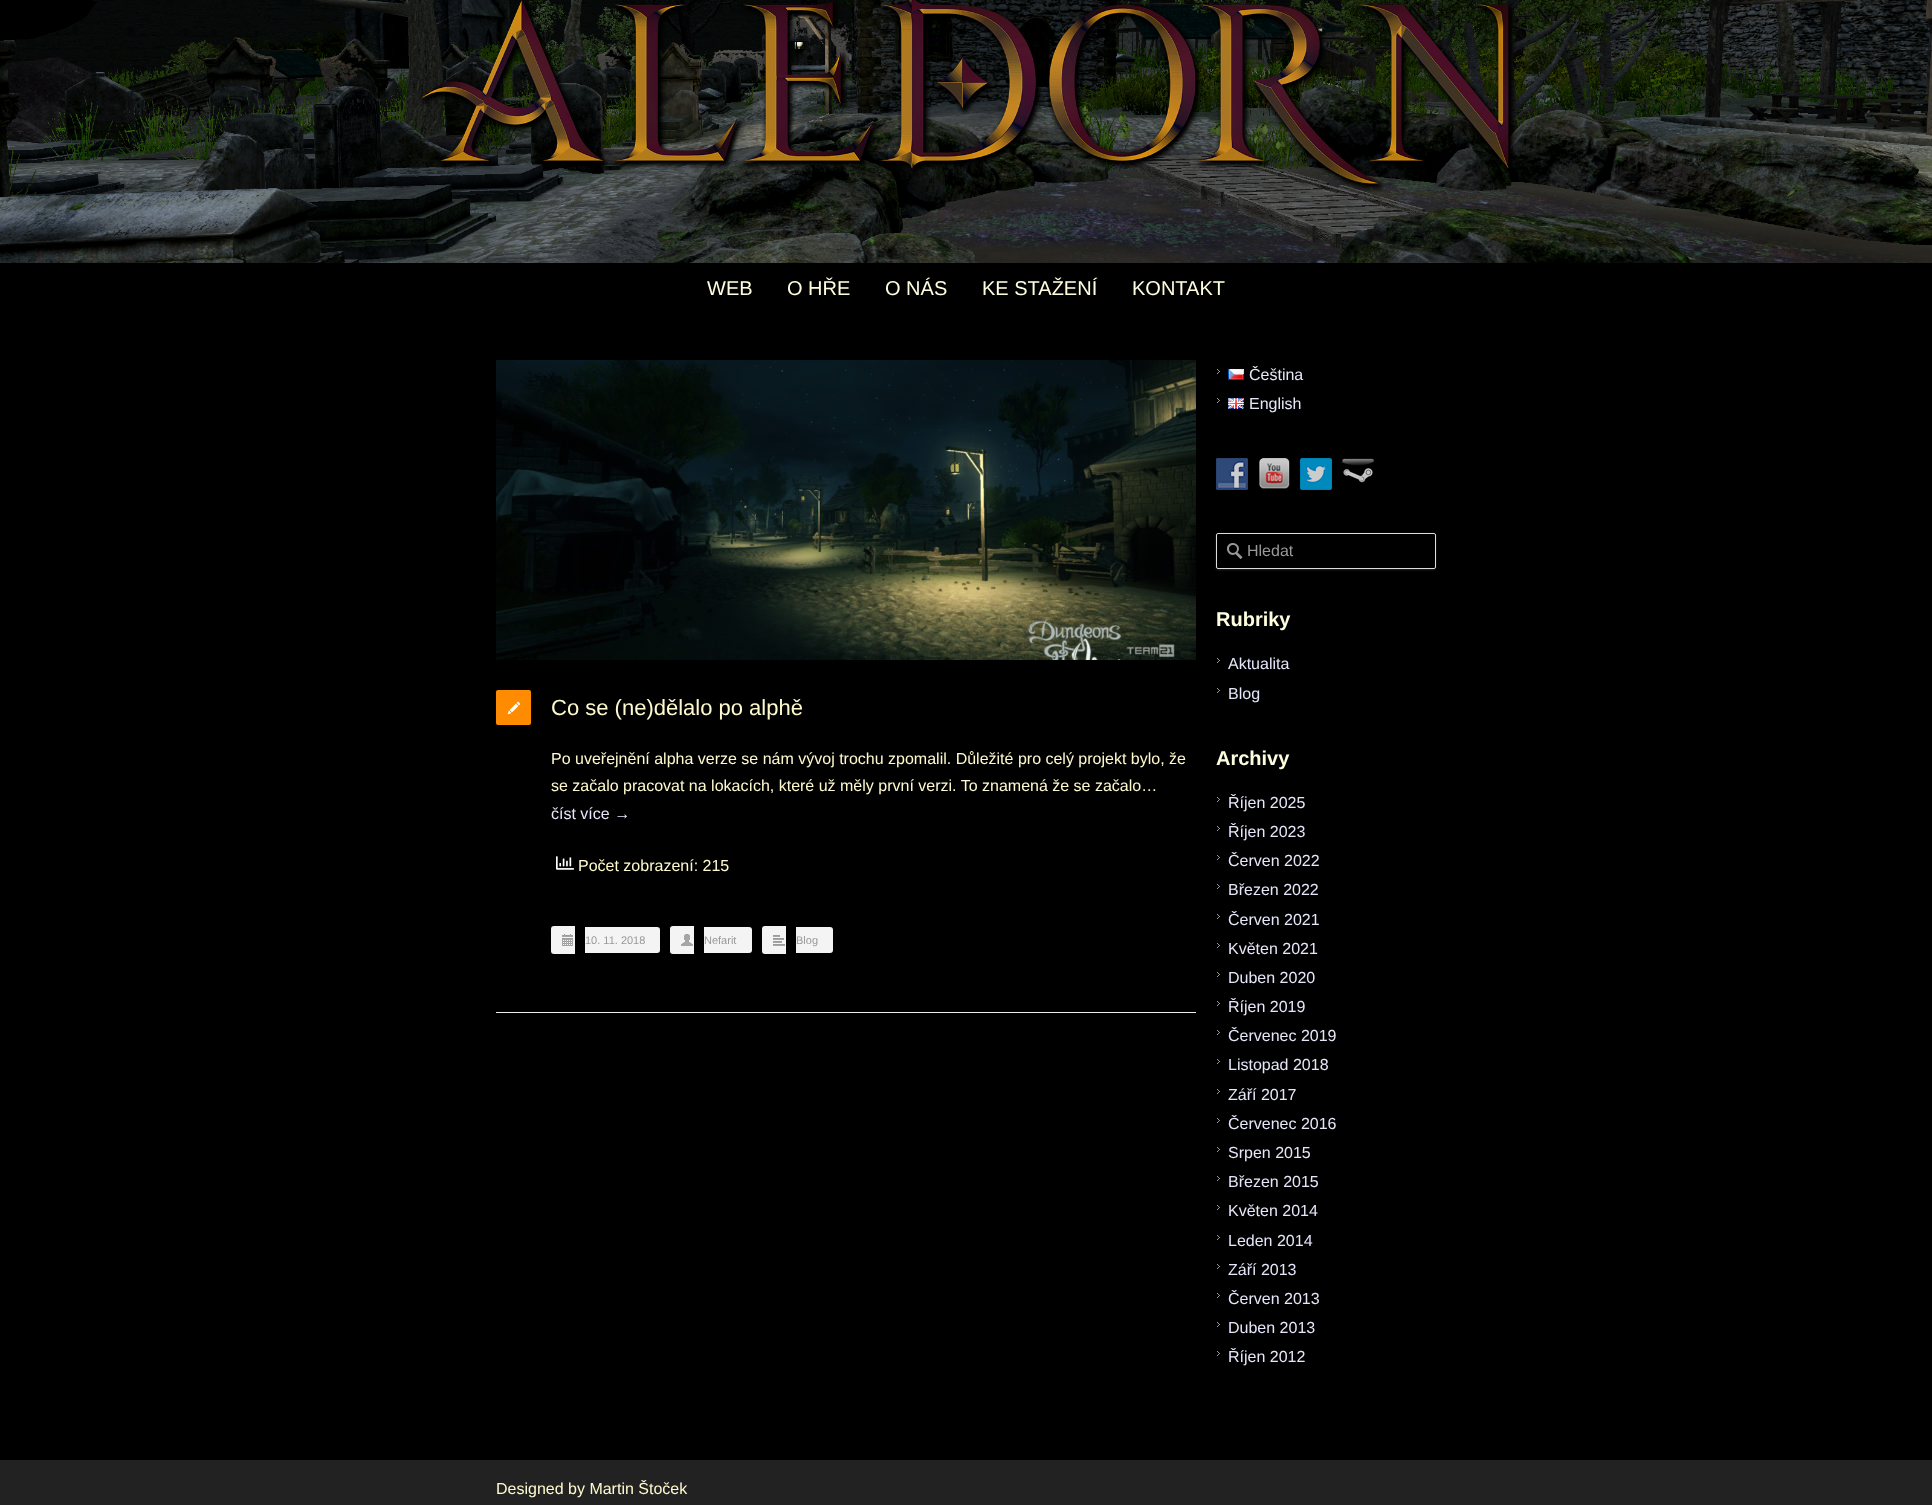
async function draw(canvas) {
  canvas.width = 1932;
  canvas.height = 1505;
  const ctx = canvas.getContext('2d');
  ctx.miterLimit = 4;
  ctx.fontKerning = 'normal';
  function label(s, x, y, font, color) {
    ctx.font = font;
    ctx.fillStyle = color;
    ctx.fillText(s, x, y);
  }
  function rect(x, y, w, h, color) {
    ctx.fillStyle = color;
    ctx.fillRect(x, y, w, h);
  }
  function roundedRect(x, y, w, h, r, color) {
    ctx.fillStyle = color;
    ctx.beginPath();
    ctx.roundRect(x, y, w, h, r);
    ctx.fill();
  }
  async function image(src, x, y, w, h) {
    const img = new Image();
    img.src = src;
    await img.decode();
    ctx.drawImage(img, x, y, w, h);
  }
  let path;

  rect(0, 0, 1932, 1505, '#000');
  await image('assets/img1.png', 0, 0, 1932, 263);
  label('WEB', 707, 295, '20px Liberation Sans', '#ffffe0');
  label('O HŘE', 787, 295, '20px Liberation Sans', '#ffffe0');
  label('O NÁS', 885, 295, '20px Liberation Sans', '#ffffe0');
  label('KE STAŽENÍ', 982, 295, '20px Liberation Sans', '#ffffe0');
  label('KONTAKT', 1132, 295, '20px Liberation Sans', '#ffffe0');
  rect(496, 1012, 700, 1, '#efefef');
  await image('assets/img2.png', 496, 360, 700, 300);
  roundedRect(496, 690, 35, 35, 2, '#ff8c00');
  await image('assets/img3.png', 507, 701, 13, 14);
  label('Co se (ne)dělalo po alphě', 551, 715, '22px Liberation Sans', '#fffacd');
  label('Po uveřejnění alpha verze se nám vývoj trochu zpomalil. Důležité pro celý projekt bylo, že', 551, 764, '16px Liberation Sans', '#fffacd');
  label('se začalo pracovat na lokacích, které už měly první verzi. To znamená že se začalo…', 551, 791, '16px Liberation Sans', '#fffacd');
  label('číst více →', 551, 819, '16px Liberation Sans', '#e6e6fa');
  await image('assets/img4.png', 556, 856, 18, 14);
  label('Počet zobrazení: 215', 578, 871, '16px Liberation Sans', '#fffacd');
  ctx.fillStyle = '#f4f4f4';
  ctx.beginPath();
  ctx.roundRect(551, 926, 24, 28, [3, 0, 0, 3]);
  ctx.fill();
  ctx.beginPath();
  ctx.roundRect(585, 927, 75, 26, [0, 3, 3, 0]);
  ctx.fill();
  await image('assets/img5.png', 562, 934, 11, 12);
  label('10. 11. 2018', 585, 944, '11px Liberation Sans', '#999');
  ctx.fillStyle = '#f4f4f4';
  ctx.beginPath();
  ctx.roundRect(670, 926, 24, 28, [3, 0, 0, 3]);
  ctx.fill();
  ctx.beginPath();
  ctx.roundRect(704, 927, 48, 26, [0, 3, 3, 0]);
  ctx.fill();
  await image('assets/img6.png', 681, 934, 12, 12);
  label('Nefarit', 704, 944, '11px Liberation Sans', '#999');
  ctx.fillStyle = '#f4f4f4';
  ctx.beginPath();
  ctx.roundRect(762, 926, 24, 28, [3, 0, 0, 3]);
  ctx.fill();
  ctx.beginPath();
  ctx.roundRect(796, 927, 37, 26, [0, 3, 3, 0]);
  ctx.fill();
  await image('assets/img7.png', 773, 935, 12, 11);
  label('Blog', 796, 944, '11px Liberation Sans', '#999');
  await image('assets/img8.png', 1217, 369, 3, 5);
  await image('assets/img9.png', 1228, 369, 16, 11);
  label('Čeština', 1249, 380, '16px Liberation Sans', '#e6e6fa');
  await image('assets/img8.png', 1217, 398, 3, 5);
  await image('assets/img10.png', 1228, 398, 16, 11);
  label('English', 1249, 409, '16px Liberation Sans', '#e6e6fa');
  await image('assets/img11.png', 1216, 458, 32, 32);
  await image('assets/img12.png', 1259, 458, 31, 31);
  await image('assets/img13.png', 1300, 458, 32, 32);
  await image('assets/img14.png', 1342, 458, 32, 25);
  ctx.save();
  path = new Path2D('M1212 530H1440V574H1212ZM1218 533H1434C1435 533 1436 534 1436 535V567C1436 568 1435 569 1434 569H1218C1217 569 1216 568 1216 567V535C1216 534 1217 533 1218 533Z');
  ctx.clip(path, 'evenodd');
  ctx.fillStyle = '#b4b4b433';
  ctx.filter = 'blur(1px)';
  ctx.beginPath();
  ctx.roundRect(1216, 534, 220, 36, 2);
  ctx.fill();
  ctx.filter = 'none';
  ctx.restore();
  await image('assets/img15.png', 1227, 543, 16, 16);
  ctx.beginPath();
  ctx.roundRect(1216.5, 533.5, 219, 35, 1.5);
  ctx.strokeStyle = '#ddd';
  ctx.stroke();
  label('Hledat', 1247, 556, '16px Liberation Sans', '#999');
  label('Rubriky', 1216, 626, 'bold 20px Liberation Sans', '#ffffe0');
  await image('assets/img8.png', 1217, 658, 3, 5);
  label('Aktualita', 1228, 669, '16px Liberation Sans', '#e6e6fa');
  await image('assets/img8.png', 1217, 688, 3, 5);
  label('Blog', 1228, 699, '16px Liberation Sans', '#e6e6fa');
  label('Archivy', 1216, 765, 'bold 20px Liberation Sans', '#ffffe0');
  await image('assets/img8.png', 1217, 797, 3, 5);
  label('Říjen 2025', 1228, 808, '16px Liberation Sans', '#e6e6fa');
  await image('assets/img8.png', 1217, 826, 3, 5);
  label('Říjen 2023', 1228, 837, '16px Liberation Sans', '#e6e6fa');
  await image('assets/img8.png', 1217, 855, 3, 5);
  label('Červen 2022', 1228, 866, '16px Liberation Sans', '#e6e6fa');
  await image('assets/img8.png', 1217, 884, 3, 5);
  label('Březen 2022', 1228, 895, '16px Liberation Sans', '#e6e6fa');
  await image('assets/img8.png', 1217, 914, 3, 5);
  label('Červen 2021', 1228, 925, '16px Liberation Sans', '#e6e6fa');
  await image('assets/img8.png', 1217, 943, 3, 5);
  label('Květen 2021', 1228, 954, '16px Liberation Sans', '#e6e6fa');
  await image('assets/img8.png', 1217, 972, 3, 5);
  label('Duben 2020', 1228, 983, '16px Liberation Sans', '#e6e6fa');
  await image('assets/img8.png', 1217, 1001, 3, 5);
  label('Říjen 2019', 1228, 1012, '16px Liberation Sans', '#e6e6fa');
  await image('assets/img8.png', 1217, 1030, 3, 5);
  label('Červenec 2019', 1228, 1041, '16px Liberation Sans', '#e6e6fa');
  await image('assets/img8.png', 1217, 1059, 3, 5);
  label('Listopad 2018', 1228, 1070, '16px Liberation Sans', '#e6e6fa');
  await image('assets/img8.png', 1217, 1089, 3, 5);
  label('Září 2017', 1228, 1100, '16px Liberation Sans', '#e6e6fa');
  await image('assets/img8.png', 1217, 1118, 3, 5);
  label('Červenec 2016', 1228, 1129, '16px Liberation Sans', '#e6e6fa');
  await image('assets/img8.png', 1217, 1147, 3, 5);
  label('Srpen 2015', 1228, 1158, '16px Liberation Sans', '#e6e6fa');
  await image('assets/img8.png', 1217, 1176, 3, 5);
  label('Březen 2015', 1228, 1187, '16px Liberation Sans', '#e6e6fa');
  await image('assets/img8.png', 1217, 1205, 3, 5);
  label('Květen 2014', 1228, 1216, '16px Liberation Sans', '#e6e6fa');
  await image('assets/img8.png', 1217, 1235, 3, 5);
  label('Leden 2014', 1228, 1246, '16px Liberation Sans', '#e6e6fa');
  await image('assets/img8.png', 1217, 1264, 3, 5);
  label('Září 2013', 1228, 1275, '16px Liberation Sans', '#e6e6fa');
  await image('assets/img8.png', 1217, 1293, 3, 5);
  label('Červen 2013', 1228, 1304, '16px Liberation Sans', '#e6e6fa');
  await image('assets/img8.png', 1217, 1322, 3, 5);
  label('Duben 2013', 1228, 1333, '16px Liberation Sans', '#e6e6fa');
  await image('assets/img8.png', 1217, 1351, 3, 5);
  label('Říjen 2012', 1228, 1362, '16px Liberation Sans', '#e6e6fa');
  rect(0, 1460, 1932, 45, '#222');
  label('Designed by Martin Štoček', 496, 1494, '16px Liberation Sans', '#fffacd');
}

draw(document.querySelector('canvas'));
